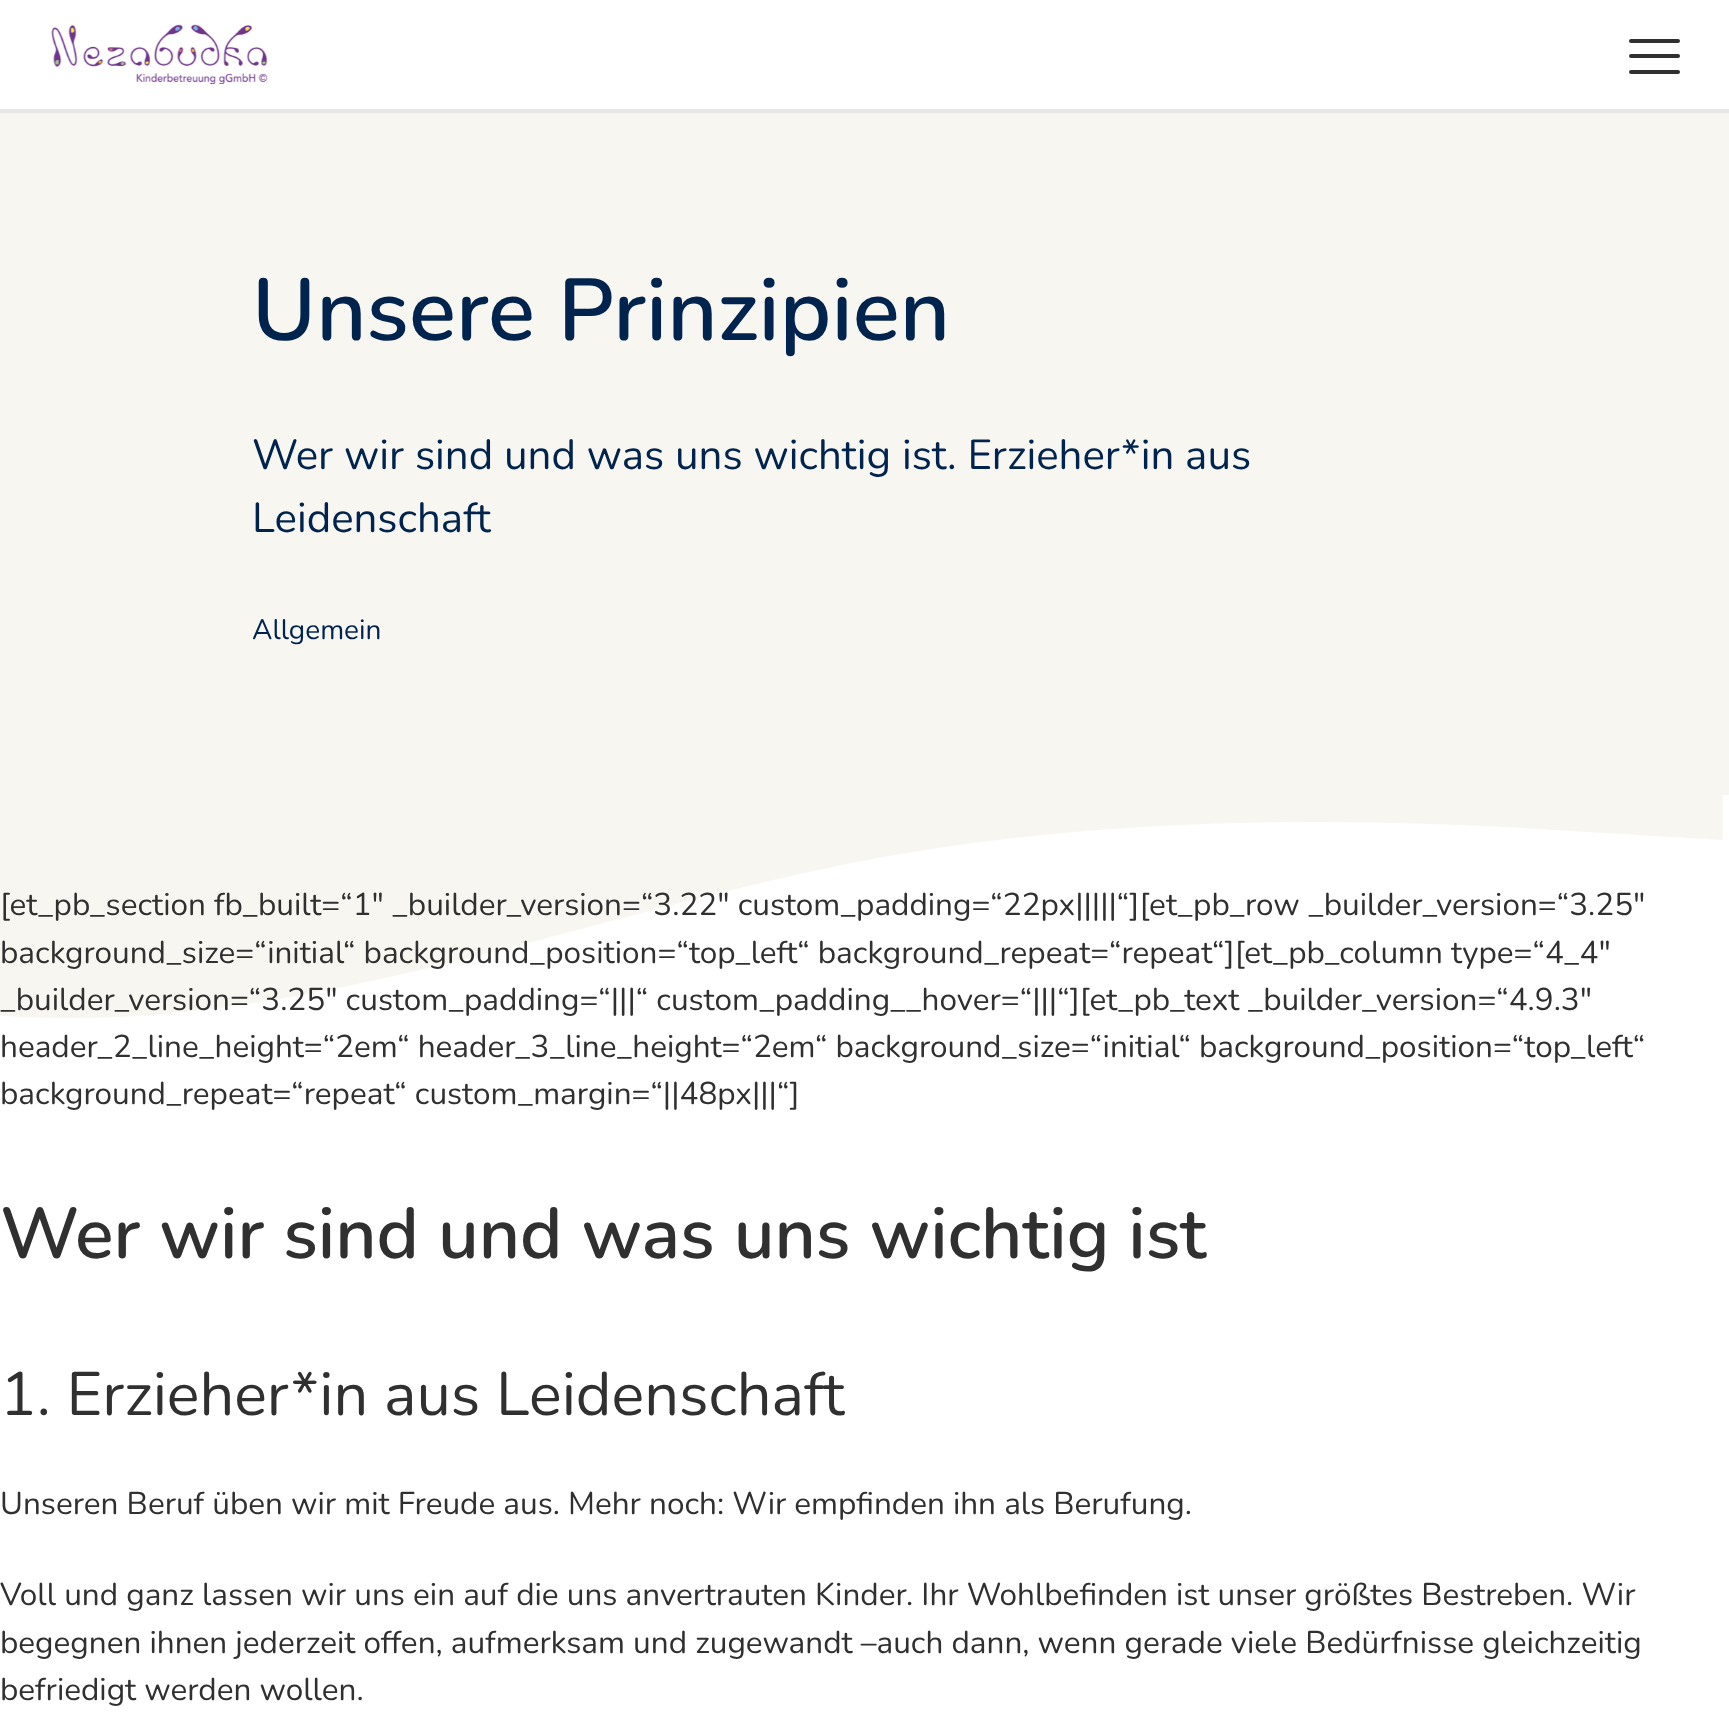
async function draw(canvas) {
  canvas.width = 1729;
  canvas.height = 1725;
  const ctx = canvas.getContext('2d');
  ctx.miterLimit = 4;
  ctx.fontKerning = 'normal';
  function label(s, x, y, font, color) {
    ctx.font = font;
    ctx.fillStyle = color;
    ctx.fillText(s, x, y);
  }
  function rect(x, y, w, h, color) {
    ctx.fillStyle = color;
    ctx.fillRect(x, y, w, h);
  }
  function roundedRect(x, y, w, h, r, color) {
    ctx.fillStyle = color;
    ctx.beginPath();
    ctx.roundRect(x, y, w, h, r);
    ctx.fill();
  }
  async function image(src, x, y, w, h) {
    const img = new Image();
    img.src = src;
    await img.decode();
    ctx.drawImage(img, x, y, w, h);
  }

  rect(0, 0, 1729, 1725, '#fff');
  rect(0, 109, 1729, 4, '#e6e6e6');
  await image('assets/img1.png', 51, 24, 217, 60);
  roundedRect(1629, 39, 51, 4, 2, '#303030');
  roundedRect(1629, 54, 51, 4, 2, '#303030');
  roundedRect(1629, 70, 51, 4, 2, '#303030');
  rect(0, 113, 1729, 682, '#f8f6f1');
  label('Unsere Prinzipien', 252, 340, '600 87.5px Nunito', '#00244d');
  label('Wer wir sind und was uns wichtig ist. Erzieher*in aus', 252, 469, '42px Nunito', '#00244d');
  label('Leidenschaft', 252, 532, '42px Nunito', '#00244d');
  label('Allgemein', 252, 639, '28px Nunito', '#00244d');
  await image('assets/img2.png', 0, 795, 1723, 223);
  label('[et_pb_section fb_built=“1″ _builder_version=“3.22″ custom_padding=“22px|||||“][et_pb_row _builder_version=“3.25″', 0, 915, '31.5px Nunito', '#303030');
  label('background_size=“initial“ background_position=“top_left“ background_repeat=“repeat“][et_pb_column type=“4_4″', 0, 963, '31.5px Nunito', '#303030');
  label('_builder_version=“3.25″ custom_padding=“|||“ custom_padding__hover=“|||“][et_pb_text _builder_version=“4.9.3″', 0, 1010, '31.5px Nunito', '#303030');
  label('header_2_line_height=“2em“ header_3_line_height=“2em“ background_size=“initial“ background_position=“top_left“', 0, 1057, '31.5px Nunito', '#303030');
  label('background_repeat=“repeat“ custom_margin=“||48px|||“]', 0, 1104, '31.5px Nunito', '#303030');
  label('Wer wir sind und was uns wichtig ist', 0, 1258, '600 71.75px Nunito', '#303030');
  label('1. Erzieher*in aus Leidenschaft', 0, 1415, '61.25px Nunito', '#303030');
  label('Unseren Beruf üben wir mit Freude aus. Mehr noch: Wir empfinden ihn als Berufung.', 0, 1514, '31.5px Nunito', '#303030');
  label('Voll und ganz lassen wir uns ein auf die uns anvertrauten Kinder. Ihr Wohlbefinden ist unser größtes Bestreben. Wir', 0, 1605, '31.5px Nunito', '#303030');
  label('begegnen ihnen jederzeit offen, aufmerksam und zugewandt –auch dann, wenn gerade viele Bedürfnisse gleichzeitig', 0, 1653, '31.5px Nunito', '#303030');
  label('befriedigt werden wollen.', 0, 1700, '31.5px Nunito', '#303030');
}

draw(document.querySelector('canvas'));
